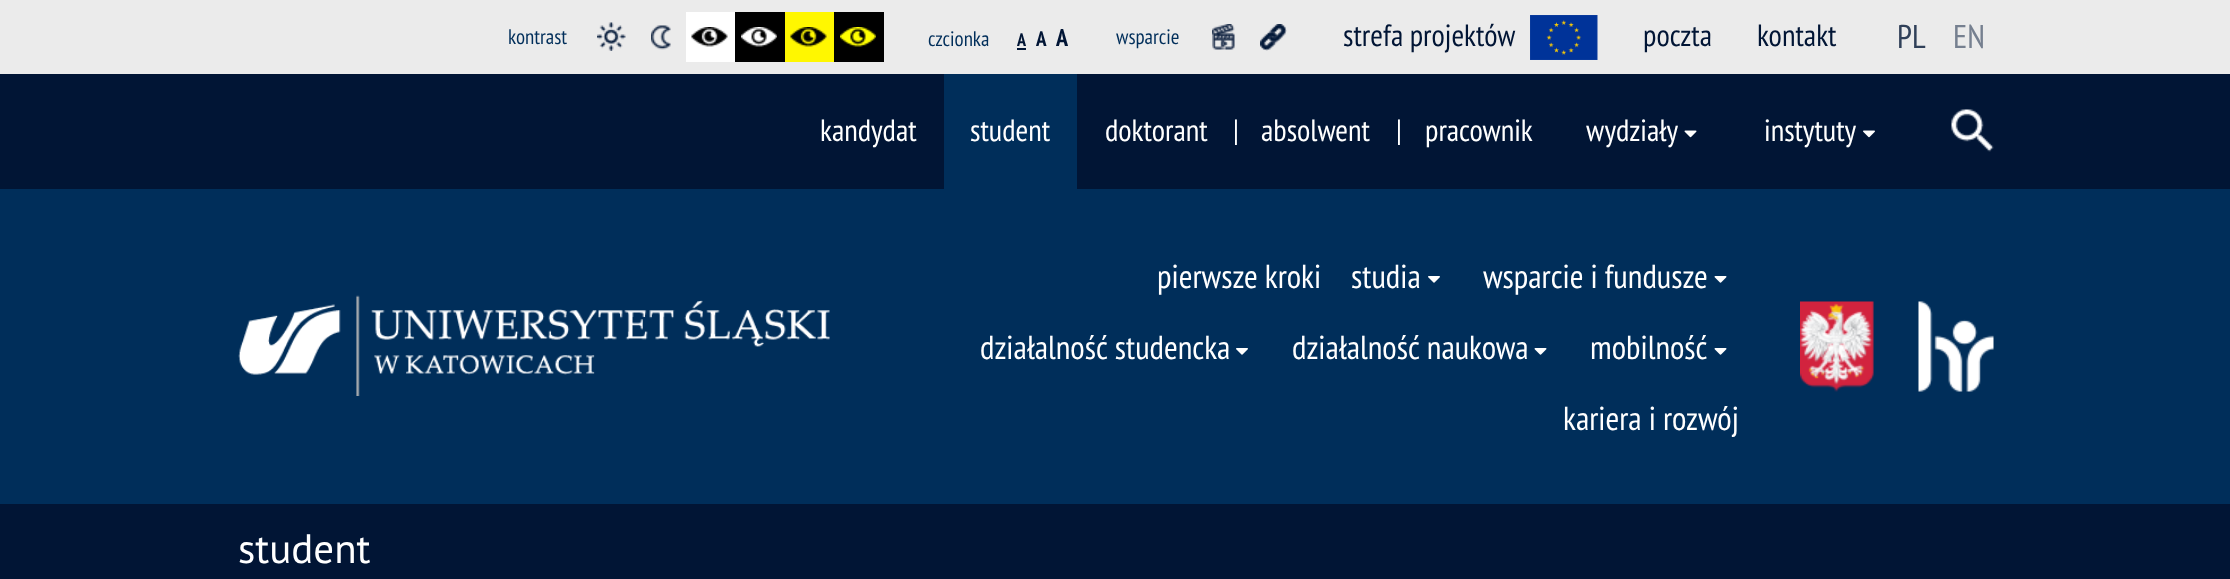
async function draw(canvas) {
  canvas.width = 2230;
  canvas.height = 579;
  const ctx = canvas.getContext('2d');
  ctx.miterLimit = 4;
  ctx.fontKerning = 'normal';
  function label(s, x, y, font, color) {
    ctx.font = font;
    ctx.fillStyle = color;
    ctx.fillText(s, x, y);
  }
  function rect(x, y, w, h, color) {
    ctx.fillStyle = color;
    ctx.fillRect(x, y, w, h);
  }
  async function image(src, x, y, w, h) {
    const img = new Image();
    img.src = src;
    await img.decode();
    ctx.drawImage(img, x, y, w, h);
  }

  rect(0, 0, 2230, 579, '#ebebeb');
  label('kontrast', 508, 44, '21px PT Sans Narrow', '#002e5a');
  await image('assets/img1.png', 597, 22, 29, 29);
  await image('assets/img2.png', 651, 25, 20, 25);
  rect(686, 12, 49, 50, '#fff');
  await image('assets/img3.png', 691, 27, 37, 20);
  rect(735, 12, 50, 50, '#000');
  await image('assets/img4.png', 741, 27, 36, 20);
  rect(785, 12, 49, 50, '#fff700');
  await image('assets/img5.png', 790, 27, 37, 20);
  rect(834, 12, 50, 50, '#000');
  await image('assets/img6.png', 840, 27, 36, 20);
  label('czcionka', 928, 46, '21px PT Sans Narrow', '#002e5a');
  label('A', 1017, 46, 'bold 18px PT Sans Narrow', '#011535');
  rect(1017, 48, 9, 2, '#011535');
  label('A', 1036, 46, 'bold 21px PT Sans Narrow', '#011535');
  label('A', 1056, 46, 'bold 24px PT Sans Narrow', '#011535');
  label('wsparcie', 1116, 44, '21px PT Sans Narrow', '#002e5a');
  await image('assets/img7.png', 1212, 24, 23, 26);
  await image('assets/img8.png', 1260, 24, 27, 27);
  label('strefa projektów', 1343, 46, '30.75px PT Sans Narrow', '#011535');
  await image('assets/img9.png', 1530, 15, 68, 45);
  label('poczta', 1643, 46, '30.75px PT Sans Narrow', '#011535');
  label('kontakt', 1757, 46, '30.75px PT Sans Narrow', '#011535');
  label('PL', 1897, 48, '33px PT Sans Narrow', '#304059');
  label('EN', 1953, 48, '33px PT Sans Narrow', '#768090');
  rect(0, 74, 2230, 115, '#011535');
  label('kandydat', 820, 141, '30.75px PT Sans Narrow', '#fff');
  rect(944, 74, 133, 115, '#002e5a');
  label('student', 970, 141, '30.75px PT Sans Narrow', '#fff');
  label('doktorant', 1105, 141, '30.75px PT Sans Narrow', '#fff');
  label('|', 1233, 141, '30.75px PT Sans Narrow', '#fff');
  label('absolwent', 1261, 141, '30.75px PT Sans Narrow', '#fff');
  label('|', 1396, 141, '30.75px PT Sans Narrow', '#fff');
  label('pracownik', 1425, 141, '30.75px PT Sans Narrow', '#fff');
  label('wydziały', 1586, 141, '30.75px PT Sans Narrow', '#fff');
  await image('assets/img10.png', 1684, 130, 13, 8);
  label('instytuty', 1764, 141, '30.75px PT Sans Narrow', '#fff');
  await image('assets/img11.png', 1863, 130, 12, 8);
  await image('assets/img12.png', 1951, 109, 43, 43);
  rect(0, 189, 2230, 315, '#002e5a');
  await image('assets/img13.png', 238, 295, 592, 101);
  label('pierwsze kroki', 1157, 288, '33.25px PT Sans Narrow', '#fff');
  label('studia', 1351, 288, '33.25px PT Sans Narrow', '#fff');
  await image('assets/img14.png', 1428, 276, 12, 7);
  label('wsparcie i fundusze', 1483, 288, '33.25px PT Sans Narrow', '#fff');
  await image('assets/img15.png', 1714, 276, 13, 7);
  label('działalność studencka', 980, 359, '33.25px PT Sans Narrow', '#fff');
  await image('assets/img14.png', 1236, 348, 12, 7);
  label('działalność naukowa', 1292, 359, '33.25px PT Sans Narrow', '#fff');
  await image('assets/img15.png', 1534, 348, 13, 7);
  label('mobilność', 1590, 359, '33.25px PT Sans Narrow', '#fff');
  await image('assets/img15.png', 1714, 348, 13, 7);
  label('kariera i rozwój', 1563, 430, '33.25px PT Sans Narrow', '#fff');
  await image('assets/img16.png', 1800, 301, 74, 91);
  await image('assets/img17.png', 1918, 301, 76, 91);
  rect(0, 504, 2230, 75, '#011535');
  label('student', 238, 563, '41px PT Sans', '#fff');
}

draw(document.querySelector('canvas'));
